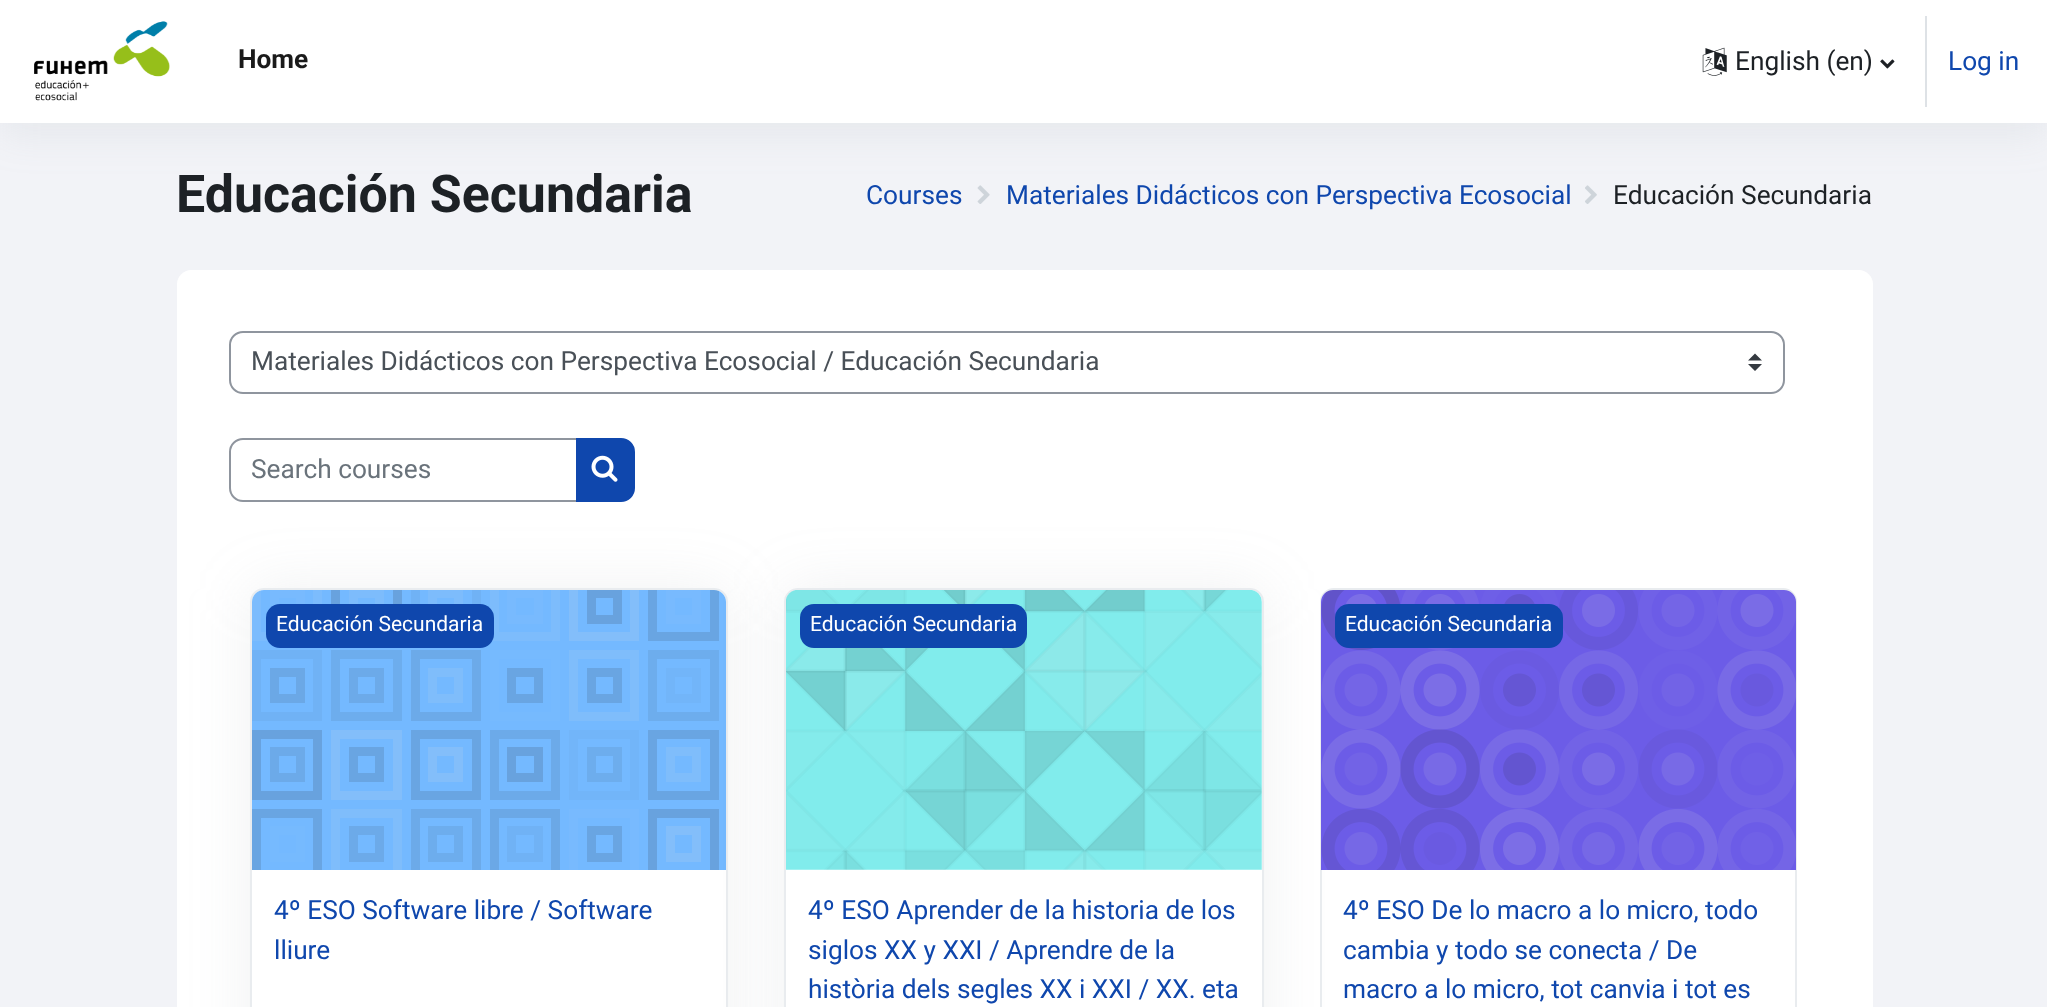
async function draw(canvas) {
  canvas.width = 2047;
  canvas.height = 1007;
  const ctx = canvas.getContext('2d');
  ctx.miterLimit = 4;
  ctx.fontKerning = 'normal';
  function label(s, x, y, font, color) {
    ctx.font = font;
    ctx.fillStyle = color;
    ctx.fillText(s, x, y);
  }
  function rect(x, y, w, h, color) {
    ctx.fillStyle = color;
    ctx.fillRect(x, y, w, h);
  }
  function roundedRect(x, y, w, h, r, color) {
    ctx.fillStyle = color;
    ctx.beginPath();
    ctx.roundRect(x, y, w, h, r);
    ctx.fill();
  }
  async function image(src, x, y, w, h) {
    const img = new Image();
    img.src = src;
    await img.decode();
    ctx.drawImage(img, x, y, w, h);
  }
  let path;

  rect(0, 0, 2047, 1007, '#f2f3f7');
  await image('assets/img4.png', 977, 185, 13, 19);
  await image('assets/img5.png', 1585, 185, 12, 19);
  ctx.fillStyle = '#8c98a421';
  ctx.filter = 'blur(21px)';
  ctx.beginPath();
  ctx.rect(0, 11, 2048, 122);
  ctx.fill();
  ctx.filter = 'none';
  rect(0, 0, 2047, 123, '#fff');
  await image('assets/img1.png', 34, 21, 136, 80);
  label('Home', 238, 68, 'bold 26.25px Roboto', '#1a1a1a');
  await image('assets/img2.png', 1702, 47, 25, 29);
  label('English (en)', 1735, 70, '26.25px Roboto', '#1d2125');
  await image('assets/img3.png', 1880, 59, 15, 10);
  rect(1925, 16, 2, 91, '#dee2e6');
  label('Log in', 1948, 70, '26.25px Roboto', '#0f47ad');
  label('Educación Secundaria', 176, 212, 'bold 51.9px Roboto', '#1d2125');
  label('Courses', 866, 204, '26.25px Roboto', '#0f47ad');
  label('Materiales Didácticos con Perspectiva Ecosocial', 1006, 204, '26.25px Roboto', '#0f47ad');
  label('Educación Secundaria', 1613, 204, '26.25px Roboto', '#1d2125');
  ctx.fillStyle = '#fff';
  path = new Path2D('M191 270H1859C1866.5 270 1873 276.5 1873 284V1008H177V284C177 276.5 183.5 270 191 270Z');
  ctx.fill(path);
  ctx.fillStyle = '#343a40';
  path = new Path2D('M1755 353.5L1748 360.5H1762ZM1755 371L1748 364H1762Z');
  ctx.fill(path);
  ctx.beginPath();
  ctx.roundRect(230, 332, 1554, 61, 13);
  ctx.strokeStyle = '#8f959e';
  ctx.lineWidth = 2;
  ctx.stroke();
  label('Materiales Didácticos con Perspectiva Ecosocial / Educación Secundaria', 251, 370, '26.25px Roboto', '#495057');
  ctx.beginPath();
  ctx.roundRect(230, 439, 347, 62, [13, 0, 0, 13]);
  ctx.stroke();
  label('Search courses', 251, 478, '26.25px Roboto', '#6a737b');
  ctx.fillStyle = '#9aa1ab26';
  ctx.filter = 'blur(30.5px)';
  ctx.beginPath();
  ctx.roundRect(250, 588, 478, 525, 14);
  ctx.fill();
  ctx.filter = 'none';
  ctx.fillStyle = '#0f47ad';
  ctx.beginPath();
  ctx.roundRect(577, 439, 57, 62, [0, 13, 13, 0]);
  ctx.fill();
  ctx.strokeStyle = '#0f47ad';
  ctx.stroke();
  await image('assets/img6.png', 591, 455, 27, 27);
  ctx.fillStyle = '#fff';
  path = new Path2D('M264 588H714C721.5 588 728 594.5 728 602V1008H250V602C250 594.5 256.5 588 264 588Z');
  ctx.fill(path);
  ctx.beginPath();
  ctx.roundRect(251, 589, 476, 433, 13);
  ctx.strokeStyle = '#e9ecef';
  ctx.stroke();
  await image('assets/img7.png', 252, 590, 474, 280);
  roundedRect(266, 604, 228, 44, 14, '#0f47ad');
  label('Educación Secundaria', 276, 631, '21px Roboto', '#fff');
  label('4º ESO Software libre / Software', 274, 919, '26.25px Roboto', '#0f47ad');
  label('lliure', 274, 959, '26.25px Roboto', '#0f47ad');
  ctx.fillStyle = '#9aa1ab26';
  ctx.filter = 'blur(30.5px)';
  ctx.beginPath();
  ctx.roundRect(784, 588, 480, 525, 14);
  ctx.fill();
  ctx.filter = 'none';
  ctx.fillStyle = '#fff';
  path = new Path2D('M798 588H1250C1257.5 588 1264 594.5 1264 602V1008H784V602C784 594.5 790.5 588 798 588Z');
  ctx.fill(path);
  ctx.beginPath();
  ctx.roundRect(785, 589, 478, 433, 13);
  ctx.stroke();
  await image('assets/img8.png', 786, 590, 476, 280);
  roundedRect(800, 604, 227, 44, 14, '#0f47ad');
  label('Educación Secundaria', 810, 631, '21px Roboto', '#fff');
  label('4º ESO Aprender de la historia de los', 808, 919, '26.25px Roboto', '#0f47ad');
  label('siglos XX y XXI / Aprendre de la', 808, 959, '26.25px Roboto', '#0f47ad');
  label('història dels segles XX i XXI / XX. eta', 808, 998, '26.25px Roboto', '#0f47ad');
  ctx.beginPath();
  ctx.roundRect(1321, 589, 475, 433, 13);
  ctx.stroke();
  await image('assets/img9.png', 1321, 590, 475, 280);
  roundedRect(1335, 604, 228, 44, 14, '#0f47ad');
  label('Educación Secundaria', 1345, 631, '21px Roboto', '#fff');
  label('4º ESO De lo macro a lo micro, todo', 1343, 919, '26.25px Roboto', '#0f47ad');
  label('cambia y todo se conecta /', 1343, 959, '26.25px Roboto', '#0f47ad');
  label('De', 1666, 959, '26.25px Roboto', '#0f47ad');
  label('macro a lo micro, tot canvia i tot es', 1343, 998, '26.25px Roboto', '#0f47ad');
}

draw(document.querySelector('canvas'));
